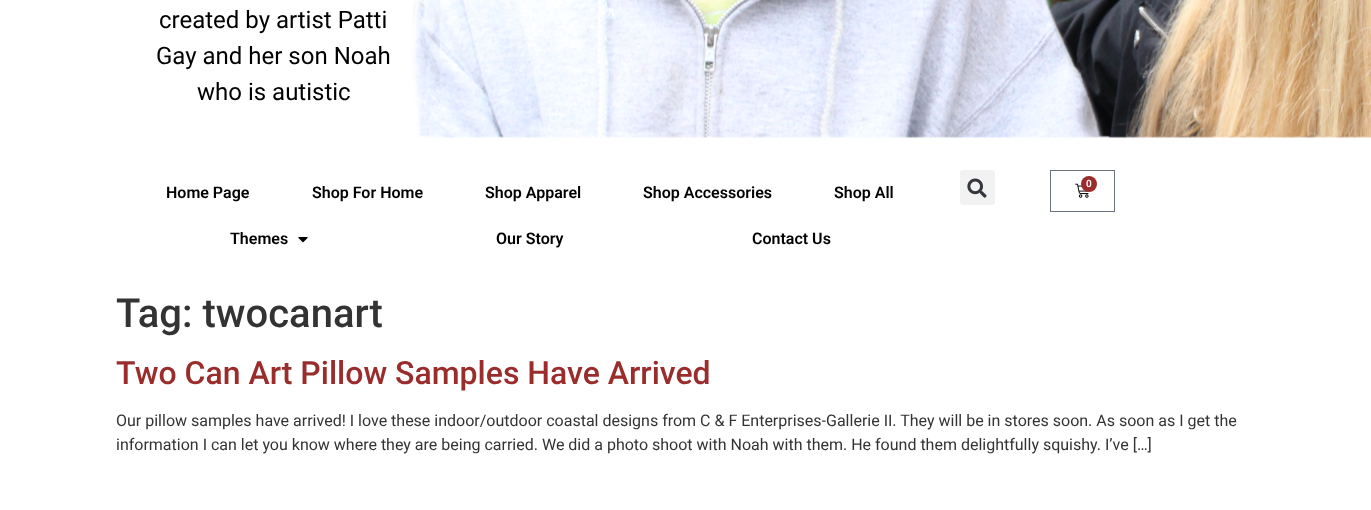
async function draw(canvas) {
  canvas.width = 1371;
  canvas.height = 510;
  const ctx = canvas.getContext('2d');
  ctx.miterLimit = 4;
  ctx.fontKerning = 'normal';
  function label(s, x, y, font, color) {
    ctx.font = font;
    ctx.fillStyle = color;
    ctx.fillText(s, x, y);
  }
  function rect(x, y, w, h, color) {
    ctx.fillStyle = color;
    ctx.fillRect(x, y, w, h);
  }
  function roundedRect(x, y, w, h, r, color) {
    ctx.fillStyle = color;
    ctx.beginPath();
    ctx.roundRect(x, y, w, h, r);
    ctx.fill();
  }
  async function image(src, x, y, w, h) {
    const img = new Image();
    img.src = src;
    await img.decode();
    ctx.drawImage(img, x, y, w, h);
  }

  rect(0, 0, 1371, 510, '#fff');
  await image('assets/img1.png', 411, 0, 960, 139);
  label('created by artist Patti', 159, 28, '24px Roboto', '#000');
  label('Gay and her son Noah', 156, 64, '24px Roboto', '#000');
  label('who is autistic', 197, 100, '24px Roboto', '#000');
  roundedRect(960, 170, 35, 35, 3, '#f2f2f2');
  await image('assets/img2.png', 967, 178, 20, 20);
  ctx.strokeStyle = '#69727d';
  ctx.strokeRect(1050.5, 170.5, 64, 41);
  await image('assets/img3.png', 1075, 183, 14, 15);
  ctx.fillStyle = '#9b2c2c';
  ctx.beginPath();
  ctx.arc(1089, 184, 8, 0, 2 * Math.PI);
  ctx.fill();
  label('0', 1086, 187, '600 10px Roboto', '#fff');
  label('Home Page', 166, 198, '600 16px Roboto', '#000');
  label('Shop For Home', 312, 198, '600 16px Roboto', '#000');
  label('Shop Apparel', 485, 198, '600 16px Roboto', '#000');
  label('Shop Accessories', 643, 198, '600 16px Roboto', '#000');
  label('Shop All', 834, 198, '600 16px Roboto', '#000');
  label('Themes', 230, 244, '600 16px Roboto', '#000');
  await image('assets/img4.png', 298, 237, 10, 6);
  label('Our Story', 496, 244, '600 16px Roboto', '#000');
  label('Contact Us', 752, 244, '600 16px Roboto', '#000');
  label('Tag: twocanart', 116, 327, '500 40px Roboto', '#333');
  label('Two Can Art Pillow Samples Have Arrived', 116, 384, '500 32px Roboto', '#9b2c2c');
  label('Our pillow samples have arrived! I love these indoor/outdoor coastal designs from C & F Enterprises-Gallerie II. They will be in stores soon. As soon as I get the', 116, 426, '16px Roboto', '#333');
  label('information I can let you know where they are being carried. We did a photo shoot with Noah with them. He found them delightfully squishy. I’ve […]', 116, 450, '16px Roboto', '#333');
}

draw(document.querySelector('canvas'));
